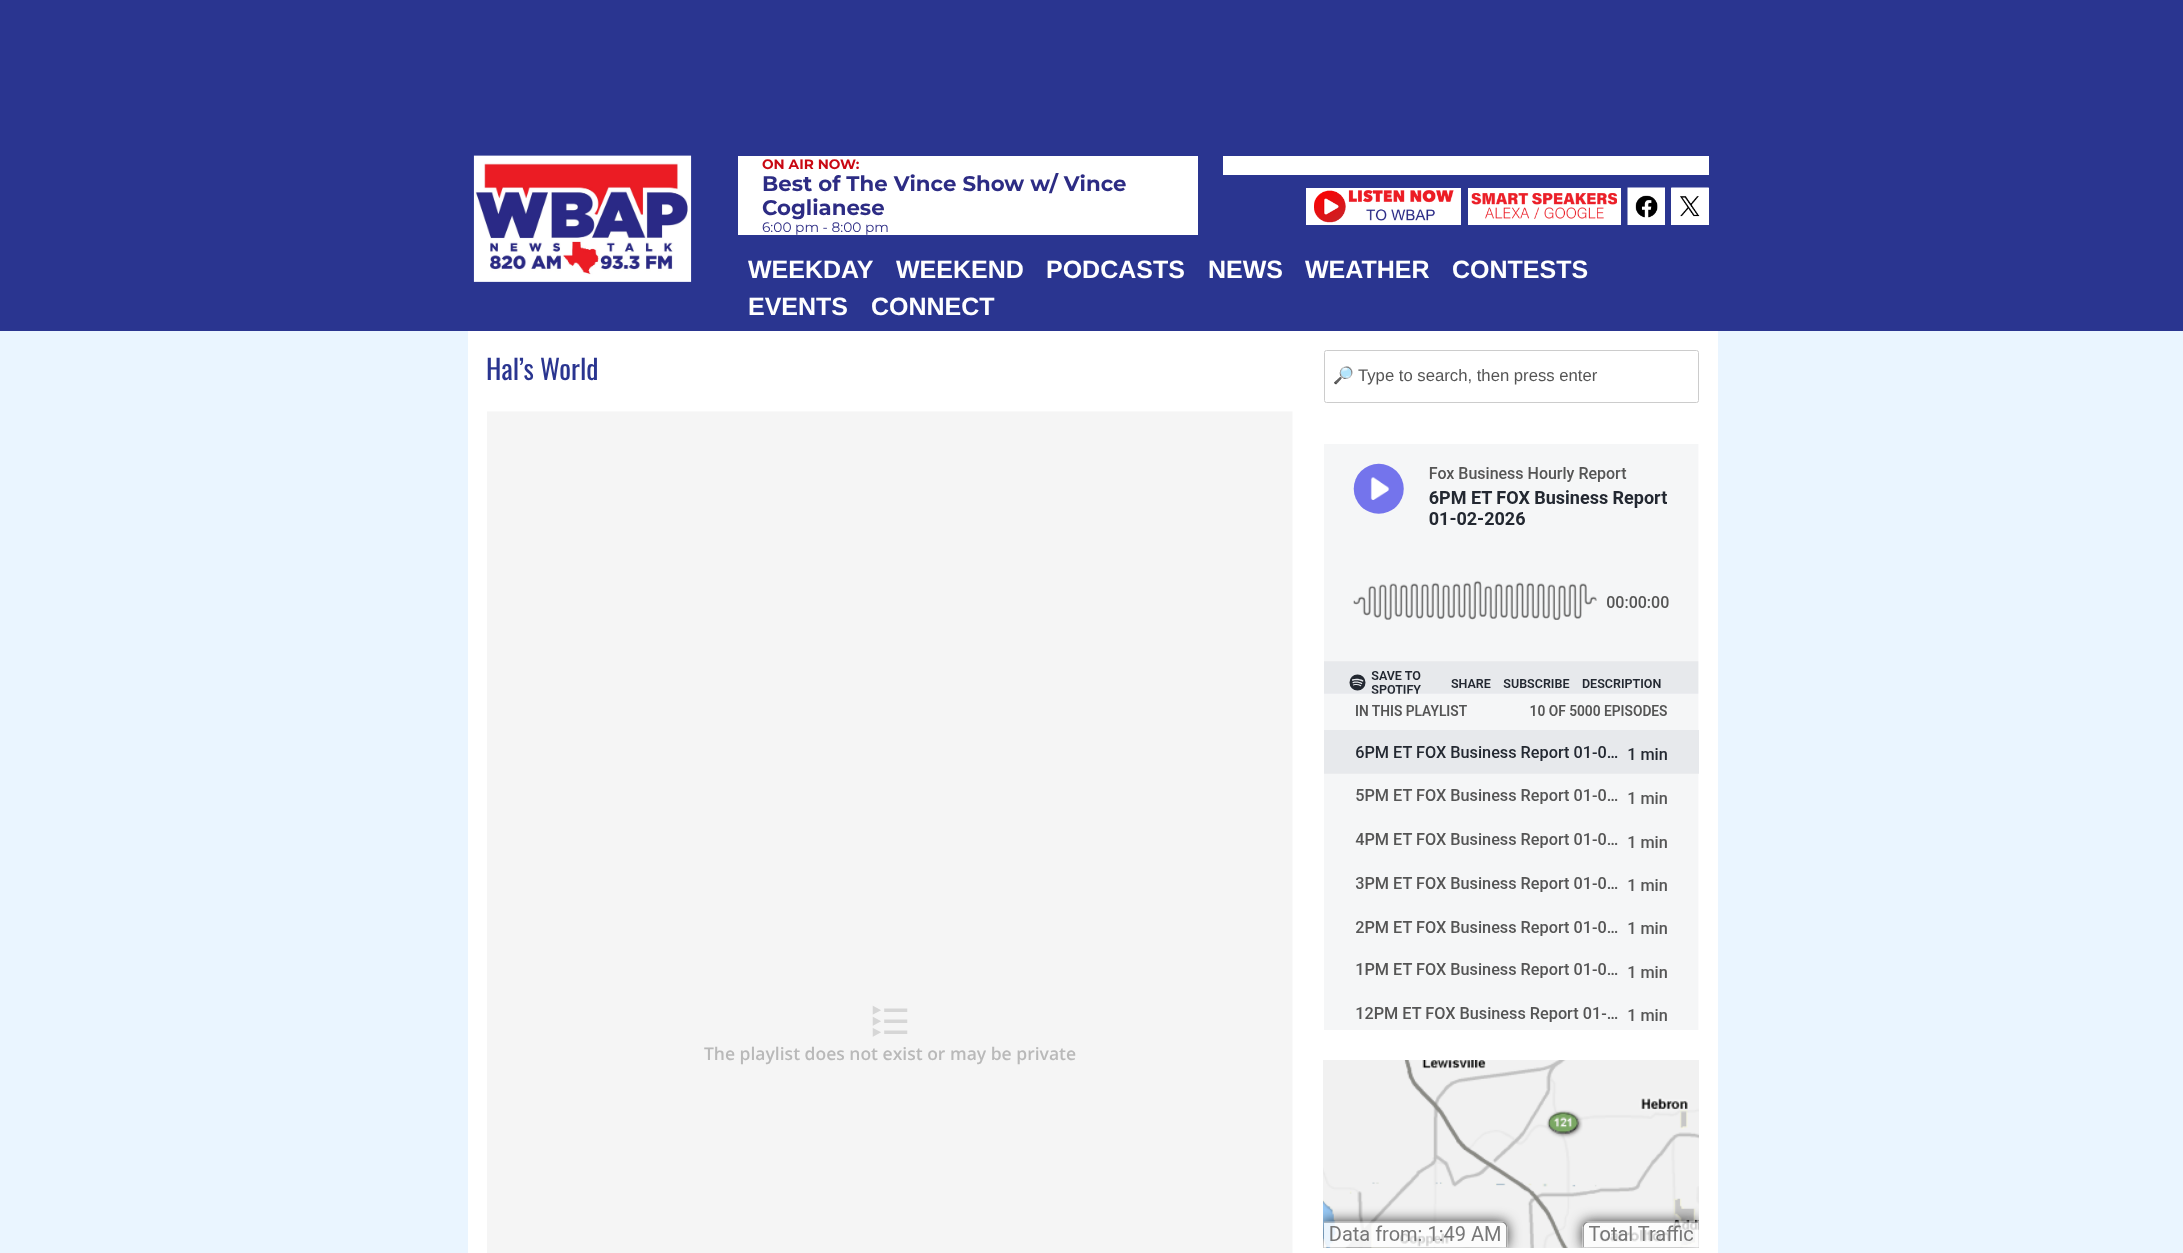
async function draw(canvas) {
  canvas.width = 2183;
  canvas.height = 1253;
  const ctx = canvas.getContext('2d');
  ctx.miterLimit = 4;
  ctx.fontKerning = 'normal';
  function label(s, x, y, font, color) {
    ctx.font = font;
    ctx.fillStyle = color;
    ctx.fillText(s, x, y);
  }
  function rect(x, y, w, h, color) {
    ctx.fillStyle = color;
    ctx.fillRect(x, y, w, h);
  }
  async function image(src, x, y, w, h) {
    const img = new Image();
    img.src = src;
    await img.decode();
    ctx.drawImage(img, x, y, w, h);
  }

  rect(0, 0, 2183, 1253, '#eaf5ff');
  rect(0, 0, 2183, 331, '#2a3590');
  await image('assets/img1.png', 473, 155, 219, 127);
  rect(738, 156, 460, 79, '#fff');
  label('ON AIR NOW:', 762, 169, 'bold 13.75px Montserrat', '#c90813');
  label('Best of The Vince Show w/ Vince', 762, 191, 'bold 21.25px Montserrat', '#2d2c84');
  label('Coglianese', 762, 215, 'bold 21.25px Montserrat', '#2d2c84');
  label('6:00 pm - 8:00 pm', 762, 232, '13.75px Montserrat', '#2d2c84');
  rect(1223, 156, 486, 19, '#fff');
  rect(1306, 188, 155, 37, '#fff');
  await image('assets/img2.png', 1314, 190, 140, 33);
  rect(1468, 188, 153, 37, '#fff');
  await image('assets/img3.png', 1471, 193, 146, 26);
  await image('assets/img4.png', 1627, 187, 38, 38);
  rect(1671, 188, 38, 37, '#fff');
  await image('assets/img5.png', 1671, 187, 38, 30);
  label('WEEKDAY', 748, 278, 'bold 25px Liberation Sans', '#fff');
  label('WEEKEND', 896, 278, 'bold 25px Liberation Sans', '#fff');
  label('PODCASTS', 1046, 278, 'bold 25px Liberation Sans', '#fff');
  label('NEWS', 1208, 278, 'bold 25px Liberation Sans', '#fff');
  label('WEATHER', 1305, 278, 'bold 25px Liberation Sans', '#fff');
  label('CONTESTS', 1452, 278, 'bold 25px Liberation Sans', '#fff');
  label('EVENTS', 748, 315, 'bold 25px Liberation Sans', '#fff');
  label('CONNECT', 871, 315, 'bold 25px Liberation Sans', '#fff');
  rect(468, 331, 1250, 922, '#fff');
  label('Hal’s World', 486, 380, '27.5px Oswald', '#2a3590');
  await image('assets/img6.png', 487, 411, 806, 842);
  ctx.beginPath();
  ctx.roundRect(1324.5, 350.5, 374, 52, 2);
  ctx.strokeStyle = '#ccc';
  ctx.stroke();
  ctx.save();
  ctx.beginPath();
  ctx.rect(1333, 360, 356, 33);
  ctx.clip();
  label('🔎', 1333, 381, '16.7px Noto Color Emoji', '#555');
  ctx.restore();
  label('Type to search, then press enter', 1358, 381, '16.7px Liberation Sans', '#555');
  await image('assets/img7.png', 1324, 444, 375, 586);
  await image('assets/img8.png', 1323, 1060, 376, 188);
}

draw(document.querySelector('canvas'));
